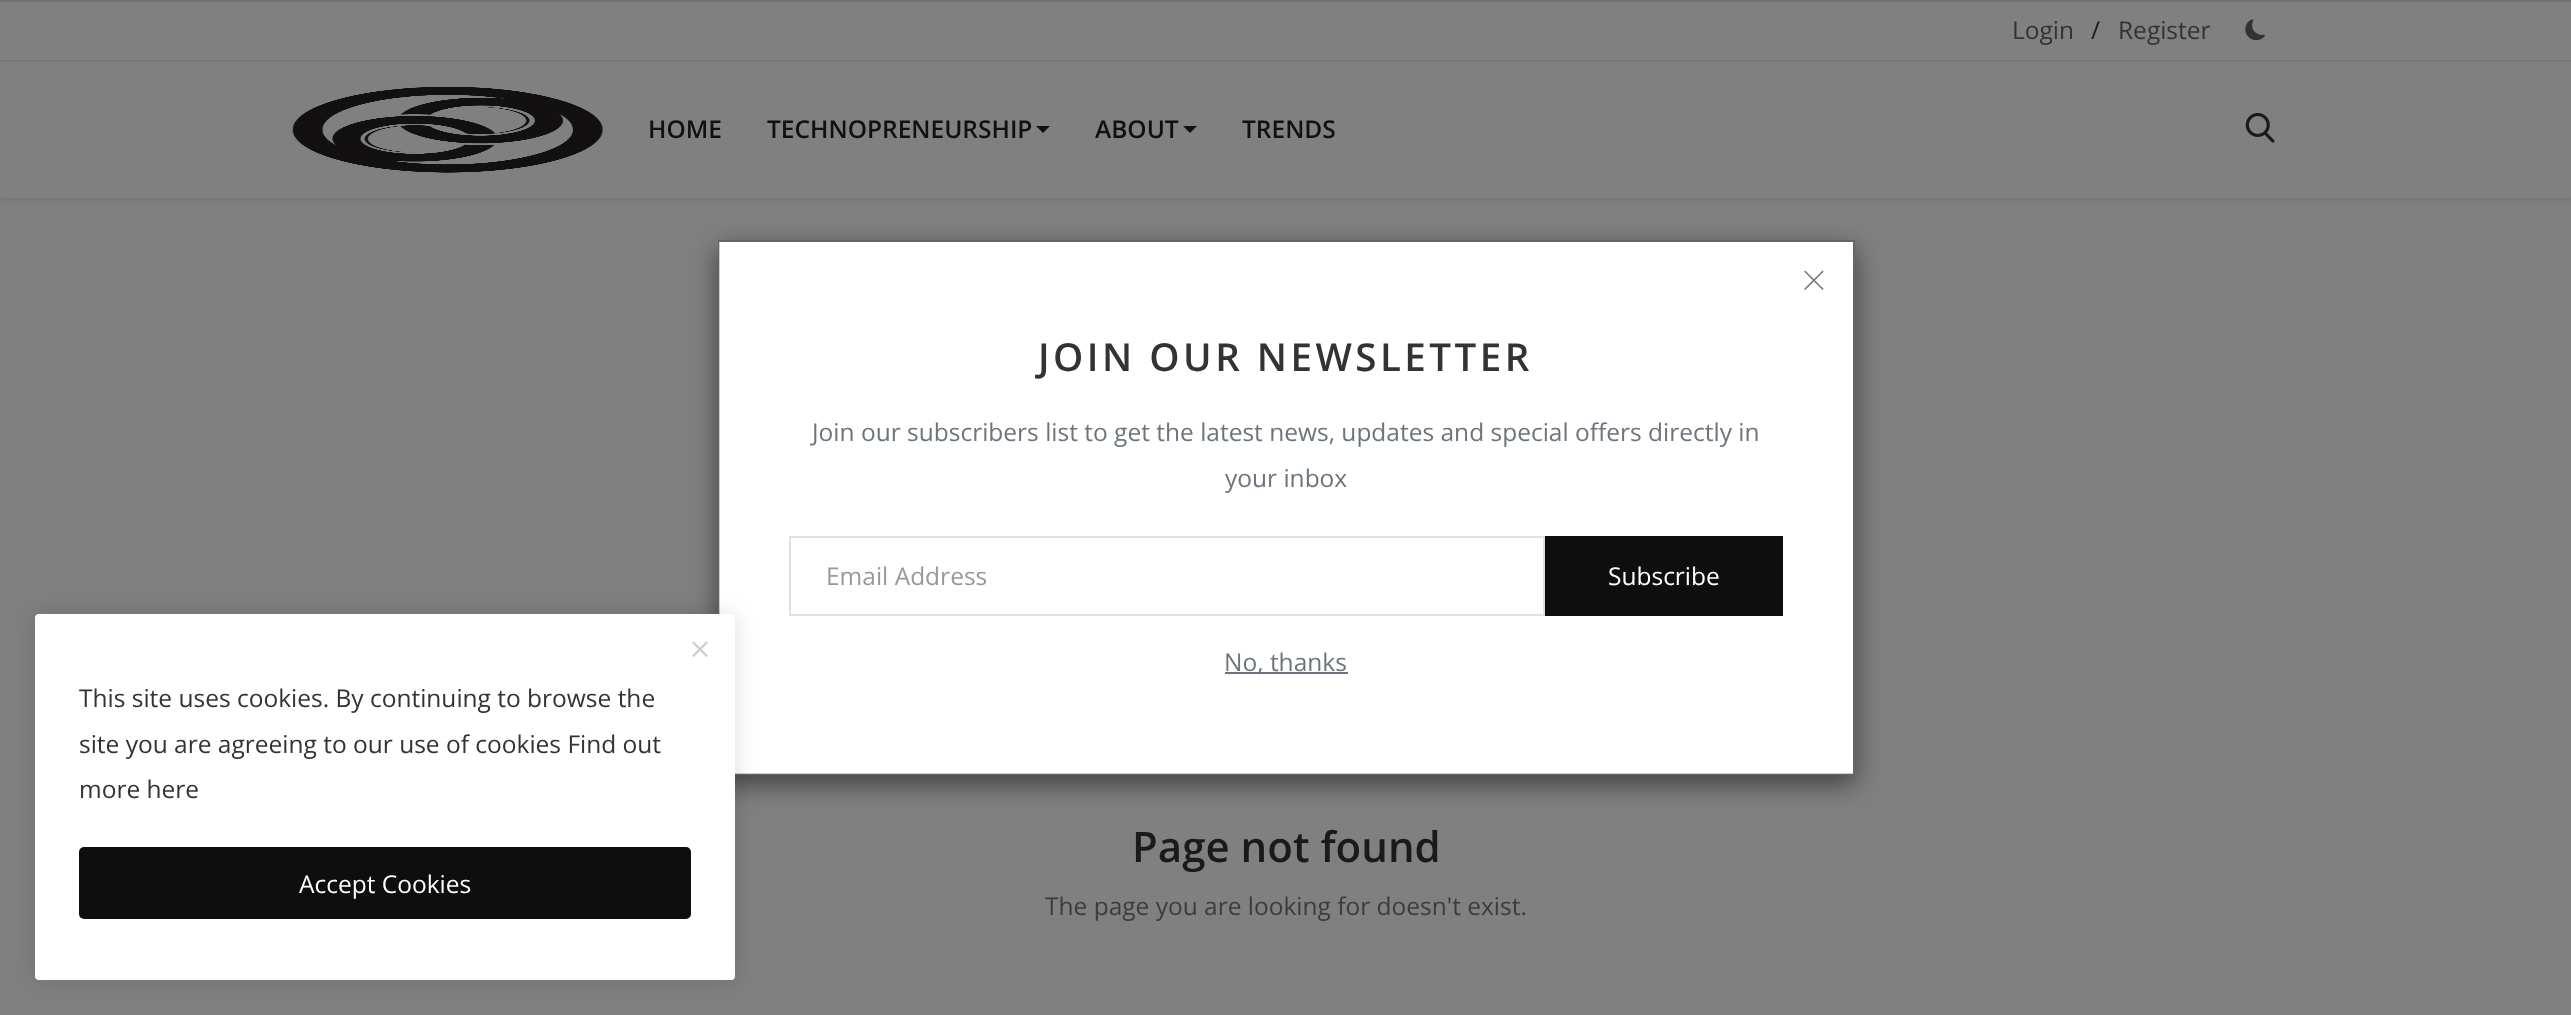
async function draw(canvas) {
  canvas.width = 2571;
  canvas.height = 1015;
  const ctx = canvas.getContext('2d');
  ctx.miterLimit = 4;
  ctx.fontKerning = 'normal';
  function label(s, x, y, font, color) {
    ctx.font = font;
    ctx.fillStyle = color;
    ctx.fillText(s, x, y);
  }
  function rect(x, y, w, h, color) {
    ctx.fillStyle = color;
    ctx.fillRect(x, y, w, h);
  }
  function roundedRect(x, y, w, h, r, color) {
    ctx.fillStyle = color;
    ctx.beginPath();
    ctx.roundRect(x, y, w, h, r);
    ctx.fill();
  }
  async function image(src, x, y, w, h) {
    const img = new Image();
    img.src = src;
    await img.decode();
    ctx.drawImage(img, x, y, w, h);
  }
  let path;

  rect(0, 0, 2571, 1015, '#808080');
  ctx.fillStyle = '#727272';
  ctx.filter = 'blur(3.5px)';
  ctx.beginPath();
  ctx.rect(0, 2, 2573, 198);
  ctx.fill();
  ctx.filter = 'none';
  rect(0, 0, 2571, 2, '#727272');
  rect(0, 2, 2571, 196, '#808080');
  rect(0, 60, 2571, 2, '#787878');
  label('Login', 2012, 39, '24.5px Open Sans', '#333');
  label('/', 2091, 39, '24.5px Open Sans', '#1a1a1a');
  label('Register', 2118, 39, '24.5px Open Sans', '#333');
  await image('assets/img1.png', 2245, 19, 20, 21);
  await image('assets/img2.png', 292, 87, 311, 86);
  label('HOME', 648, 138, '600 24.5px Open Sans', '#111');
  label('TECHNOPRENEURSHIP', 767, 138, '600 24.5px Open Sans', '#111');
  path = new Path2D('M1036 126H1050L1043 133Z');
  ctx.fill(path);
  label('ABOUT', 1095, 138, '600 24.5px Open Sans', '#111');
  path = new Path2D('M1183 126H1197L1190 133Z');
  ctx.fill(path);
  label('TRENDS', 1242, 138, '600 24.5px Open Sans', '#111');
  await image('assets/img3.png', 2245, 113, 30, 30);
  ctx.save();
  path = new Path2D('M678 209H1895V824H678ZM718 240H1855V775H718Z');
  ctx.clip(path, 'evenodd');
  ctx.fillStyle = '#00000080';
  ctx.filter = 'blur(13px)';
  ctx.beginPath();
  ctx.rect(718, 249, 1137, 535);
  ctx.fill();
  ctx.filter = 'none';
  ctx.restore();
  rect(719, 242, 1134, 532, '#fff');
  ctx.strokeStyle = '#00000033';
  ctx.lineWidth = 2;
  ctx.strokeRect(719, 241, 1135, 533);
  await image('assets/img4.png', 1804, 270, 20, 20);
  ctx.letterSpacing = '3.5px';
  label('JOIN OUR NEWSLETTER', 1038, 371, '600 38.5px Open Sans', '#333');
  ctx.letterSpacing = '0px';
  label('Join our subscribers list to get the latest news, updates and special offers directly in', 812, 441, '24.5px Open Sans', '#6c757d');
  label('your inbox', 1225, 487, '24.5px Open Sans', '#6c757d');
  ctx.strokeStyle = '#dfe0e6';
  ctx.strokeRect(790, 537, 754, 78);
  label('Email Address', 826, 585, '24.5px Open Sans', '#999');
  rect(1545, 536, 238, 80, '#0e0e0e');
  label('Subscribe', 1608, 585, '24.5px Open Sans', '#fff');
  rect(1225, 672, 123, 2, '#6c757d');
  label('No, thanks', 1224, 671, '24.5px Open Sans', '#6c757d');
  ctx.fillStyle = '#00000024';
  ctx.filter = 'blur(10.5px)';
  ctx.beginPath();
  ctx.roundRect(35, 614, 700, 366, 4);
  ctx.fill();
  ctx.filter = 'none';
  roundedRect(35, 614, 700, 366, 4, '#fff');
  await image('assets/img5.png', 692, 641, 16, 16);
  label('This site uses cookies. By continuing to browse the', 79, 707, '24.5px Open Sans', '#333');
  label('site you are agreeing to our use of cookies Find out', 79, 753, '24.5px Open Sans', '#333');
  label('more here', 79, 798, '24.5px Open Sans', '#333');
  roundedRect(79, 847, 612, 72, 5, '#0e0e0e');
  label('Accept Cookies', 299, 893, '24.5px Open Sans', '#fff');
  label('Page not found', 1132, 862, '600 42px Open Sans', '#1a1a1a');
  label('The page you are looking for doesn\'t exist.', 1045, 915, '24.5px Open Sans', '#3c3c3c');
}

draw(document.querySelector('canvas'));
